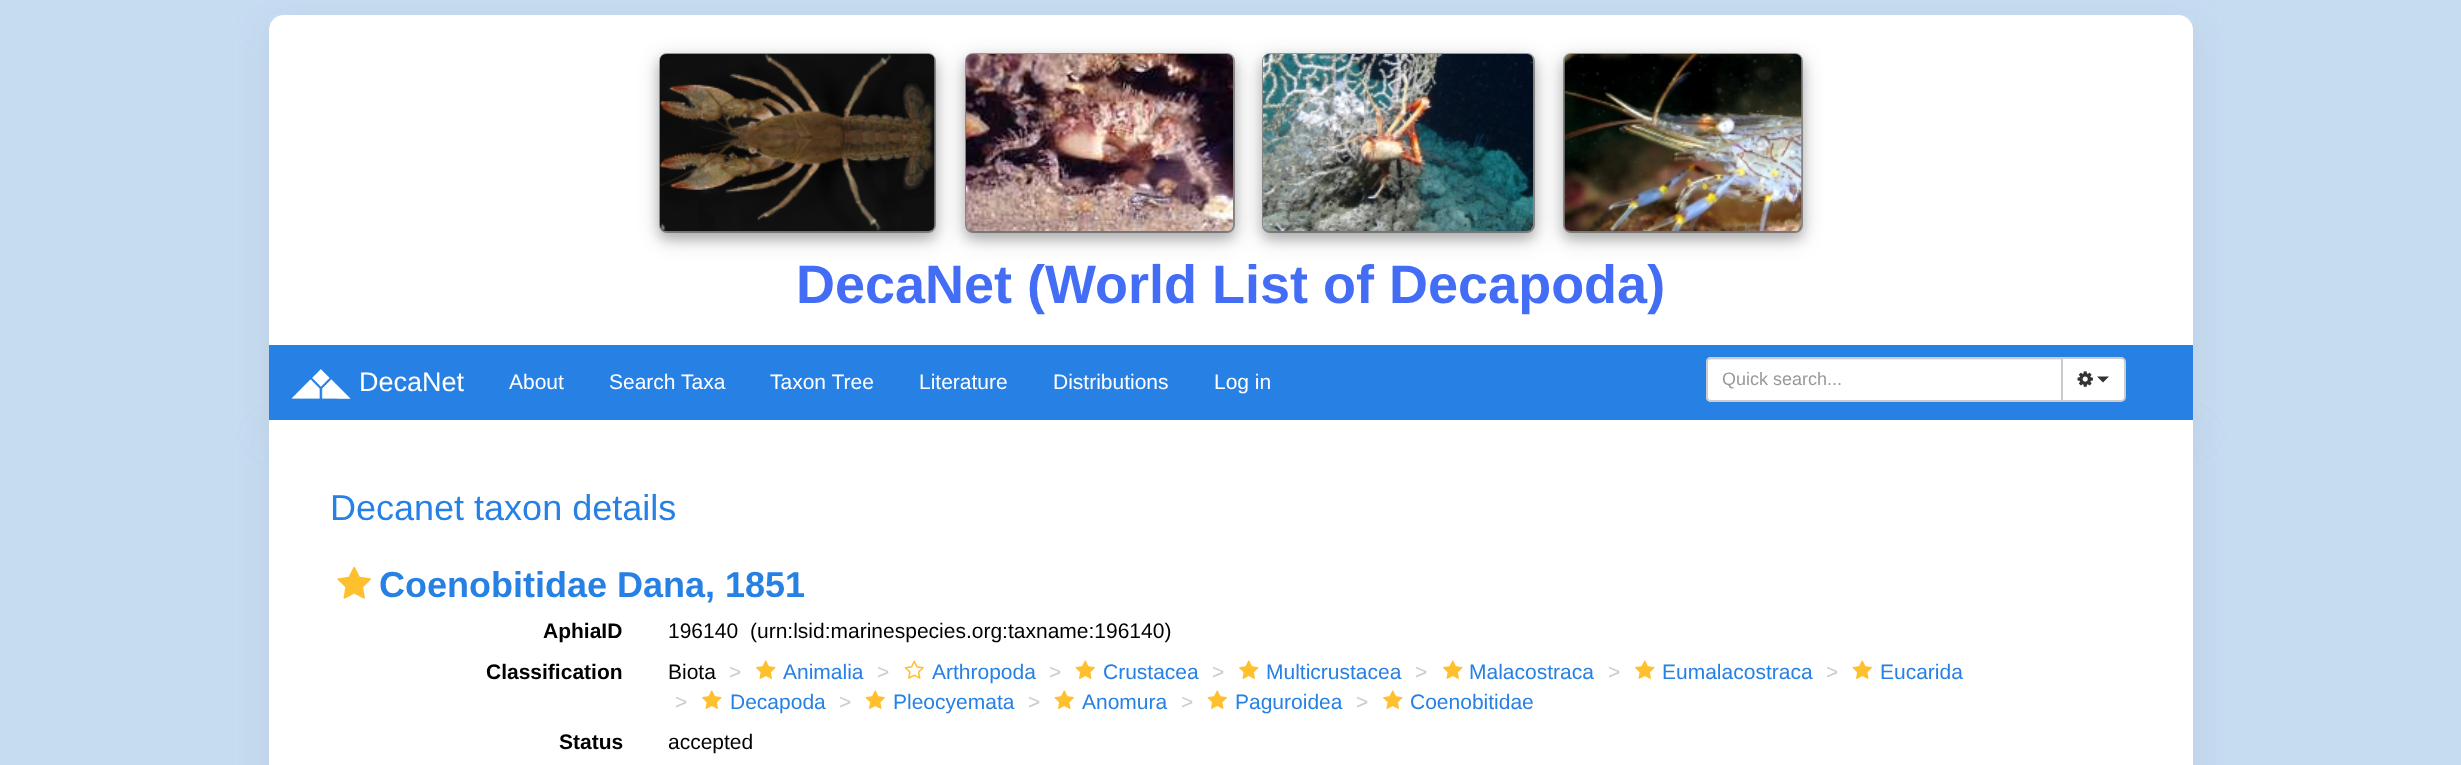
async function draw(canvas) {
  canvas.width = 2461;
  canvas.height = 765;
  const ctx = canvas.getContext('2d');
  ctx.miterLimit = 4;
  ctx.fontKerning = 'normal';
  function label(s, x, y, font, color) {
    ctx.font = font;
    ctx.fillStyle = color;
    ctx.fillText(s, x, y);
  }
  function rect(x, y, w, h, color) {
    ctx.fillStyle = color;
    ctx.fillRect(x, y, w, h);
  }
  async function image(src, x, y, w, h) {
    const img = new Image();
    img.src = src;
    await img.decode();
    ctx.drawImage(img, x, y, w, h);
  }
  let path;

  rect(0, 0, 2461, 765, '#c6dcf1');
  ctx.save();
  path = new Path2D('M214 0H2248V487H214ZM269 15H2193V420H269Z');
  ctx.clip(path, 'evenodd');
  ctx.fillStyle = '#959da533';
  ctx.filter = 'blur(18px)';
  ctx.beginPath();
  ctx.rect(269, 27, 1924, 405);
  ctx.fill();
  ctx.filter = 'none';
  ctx.restore();
  ctx.fillStyle = '#fff';
  ctx.beginPath();
  ctx.roundRect(269, 15, 1924, 330, [15, 15, 0, 0]);
  ctx.fill();
  ctx.fillStyle = '#00000030';
  ctx.filter = 'blur(11px)';
  ctx.beginPath();
  ctx.roundRect(659, 59, 277, 180, 8);
  ctx.fill();
  ctx.filter = 'none';
  ctx.fillStyle = '#00000033';
  ctx.filter = 'blur(6px)';
  ctx.beginPath();
  ctx.roundRect(659, 59, 277, 180, 8);
  ctx.fill();
  ctx.filter = 'none';
  ctx.beginPath();
  ctx.roundRect(660, 54, 275, 178, 7);
  ctx.strokeStyle = '#00000059';
  ctx.lineWidth = 2;
  ctx.stroke();
  await image('assets/img1.png', 660, 54, 275, 177);
  ctx.fillStyle = '#00000030';
  ctx.filter = 'blur(11px)';
  ctx.beginPath();
  ctx.roundRect(965, 59, 270, 180, 8);
  ctx.fill();
  ctx.filter = 'none';
  ctx.fillStyle = '#00000033';
  ctx.filter = 'blur(6px)';
  ctx.beginPath();
  ctx.roundRect(965, 59, 270, 180, 8);
  ctx.fill();
  ctx.filter = 'none';
  ctx.beginPath();
  ctx.roundRect(966, 54, 268, 178, 7);
  ctx.stroke();
  await image('assets/img2.png', 966, 54, 267, 177);
  ctx.fillStyle = '#00000030';
  ctx.filter = 'blur(11px)';
  ctx.beginPath();
  ctx.roundRect(1262, 59, 273, 180, 8);
  ctx.fill();
  ctx.filter = 'none';
  ctx.fillStyle = '#00000033';
  ctx.filter = 'blur(6px)';
  ctx.beginPath();
  ctx.roundRect(1262, 59, 273, 180, 8);
  ctx.fill();
  ctx.filter = 'none';
  ctx.beginPath();
  ctx.roundRect(1263, 54, 271, 178, 7);
  ctx.stroke();
  await image('assets/img3.png', 1263, 54, 270, 177);
  ctx.fillStyle = '#00000030';
  ctx.filter = 'blur(11px)';
  ctx.beginPath();
  ctx.roundRect(1563, 59, 240, 180, 8);
  ctx.fill();
  ctx.filter = 'none';
  ctx.fillStyle = '#00000033';
  ctx.filter = 'blur(6px)';
  ctx.beginPath();
  ctx.roundRect(1563, 59, 240, 180, 8);
  ctx.fill();
  ctx.filter = 'none';
  ctx.beginPath();
  ctx.roundRect(1564, 54, 238, 178, 7);
  ctx.stroke();
  await image('assets/img4.png', 1564, 54, 238, 177);
  label('DecaNet (World List of Decapoda)', 796, 303, 'bold 54px Liberation Sans', '#446df6');
  ctx.fillStyle = '#959da533';
  ctx.filter = 'blur(18px)';
  ctx.beginPath();
  ctx.roundRect(269, 432, 1924, 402, 15);
  ctx.fill();
  ctx.filter = 'none';
  rect(269, 345, 1924, 75, '#2780e3');
  await image('assets/img5.png', 291, 369, 60, 30);
  label('DecaNet', 359, 391, '27px Liberation Sans', '#fff');
  label('About', 509, 389, '21px Liberation Sans', '#fff');
  label('Search Taxa', 609, 389, '21px Liberation Sans', '#fff');
  label('Taxon Tree', 770, 389, '21px Liberation Sans', '#fff');
  label('Literature', 919, 389, '21px Liberation Sans', '#fff');
  label('Distributions', 1053, 389, '21px Liberation Sans', '#fff');
  label('Log in', 1214, 389, '21px Liberation Sans', '#fff');
  ctx.beginPath();
  ctx.roundRect(1706, 357, 357, 45, [5, 0, 0, 5]);
  ctx.fill();
  ctx.fillStyle = '#ececec';
  path = new Path2D('M1710 360H2061V359H1710C1708 359 1707 360 1707 362V363C1707 361 1708 360 1710 360Z');
  ctx.fill(path);
  ctx.beginPath();
  ctx.roundRect(1707, 358, 355, 43, [4, 0, 0, 4]);
  ctx.strokeStyle = '#ccc';
  ctx.stroke();
  label('Quick search...', 1722, 385, '18px Liberation Sans', '#999');
  ctx.fillStyle = '#fff';
  ctx.beginPath();
  ctx.roundRect(2062, 358, 63, 43, [0, 4, 4, 0]);
  ctx.fill();
  ctx.stroke();
  await image('assets/img6.png', 2077, 371, 16, 16);
  ctx.fillStyle = '#333';
  path = new Path2D('M2097 376.5H2109L2103 382.5Z');
  ctx.fill(path);
  rect(269, 420, 1924, 345, '#fff');
  label('Decanet taxon details', 330, 520, '36px Liberation Sans', '#2780e3');
  await image('assets/img7.png', 337, 566, 34, 33);
  label('Coenobitidae Dana, 1851', 379, 597, 'bold 36px Liberation Sans', '#2780e3');
  label('AphiaID', 543, 638, 'bold 21px Liberation Sans', '#000');
  label('196140', 668, 638, '21px Liberation Sans', '#000');
  label('(urn:lsid:marinespecies.org:taxname:196140)', 750, 638, '21px Liberation Sans', '#000');
  label('Classification', 486, 679, 'bold 21px Liberation Sans', '#000');
  label('Biota', 668, 679, '21px Liberation Sans', '#000');
  label('>', 729, 679, '21px Liberation Sans', '#ccc');
  await image('assets/img8.png', 756, 660, 20, 19);
  label('Animalia', 783, 679, '21px Liberation Sans', '#2780e3');
  label('>', 877, 679, '21px Liberation Sans', '#ccc');
  await image('assets/img9.png', 904, 660, 20, 19);
  label('Arthropoda', 932, 679, '21px Liberation Sans', '#2780e3');
  label('>', 1049, 679, '21px Liberation Sans', '#ccc');
  await image('assets/img10.png', 1075, 660, 20, 19);
  label('Crustacea', 1103, 679, '21px Liberation Sans', '#2780e3');
  label('>', 1212, 679, '21px Liberation Sans', '#ccc');
  await image('assets/img8.png', 1239, 660, 20, 19);
  label('Multicrustacea', 1266, 679, '21px Liberation Sans', '#2780e3');
  label('>', 1415, 679, '21px Liberation Sans', '#ccc');
  await image('assets/img8.png', 1443, 660, 20, 19);
  label('Malacostraca', 1469, 679, '21px Liberation Sans', '#2780e3');
  label('>', 1608, 679, '21px Liberation Sans', '#ccc');
  await image('assets/img8.png', 1635, 660, 20, 19);
  label('Eumalacostraca', 1662, 679, '21px Liberation Sans', '#2780e3');
  label('>', 1826, 679, '21px Liberation Sans', '#ccc');
  await image('assets/img10.png', 1852, 660, 20, 19);
  label('Eucarida', 1880, 679, '21px Liberation Sans', '#2780e3');
  label('>', 675, 709, '21px Liberation Sans', '#ccc');
  await image('assets/img8.png', 702, 690, 20, 19);
  label('Decapoda', 730, 709, '21px Liberation Sans', '#2780e3');
  label('>', 839, 709, '21px Liberation Sans', '#ccc');
  await image('assets/img10.png', 865, 690, 20, 19);
  label('Pleocyemata', 893, 709, '21px Liberation Sans', '#2780e3');
  label('>', 1028, 709, '21px Liberation Sans', '#ccc');
  await image('assets/img10.png', 1054, 690, 20, 19);
  label('Anomura', 1082, 709, '21px Liberation Sans', '#2780e3');
  label('>', 1181, 709, '21px Liberation Sans', '#ccc');
  await image('assets/img10.png', 1207, 690, 20, 19);
  label('Paguroidea', 1235, 709, '21px Liberation Sans', '#2780e3');
  label('>', 1356, 709, '21px Liberation Sans', '#ccc');
  await image('assets/img8.png', 1383, 690, 20, 19);
  label('Coenobitidae', 1410, 709, '21px Liberation Sans', '#2780e3');
  label('Status', 559, 749, 'bold 21px Liberation Sans', '#000');
  label('accepted', 668, 749, '21px Liberation Sans', '#000');
}

draw(document.querySelector('canvas'));
